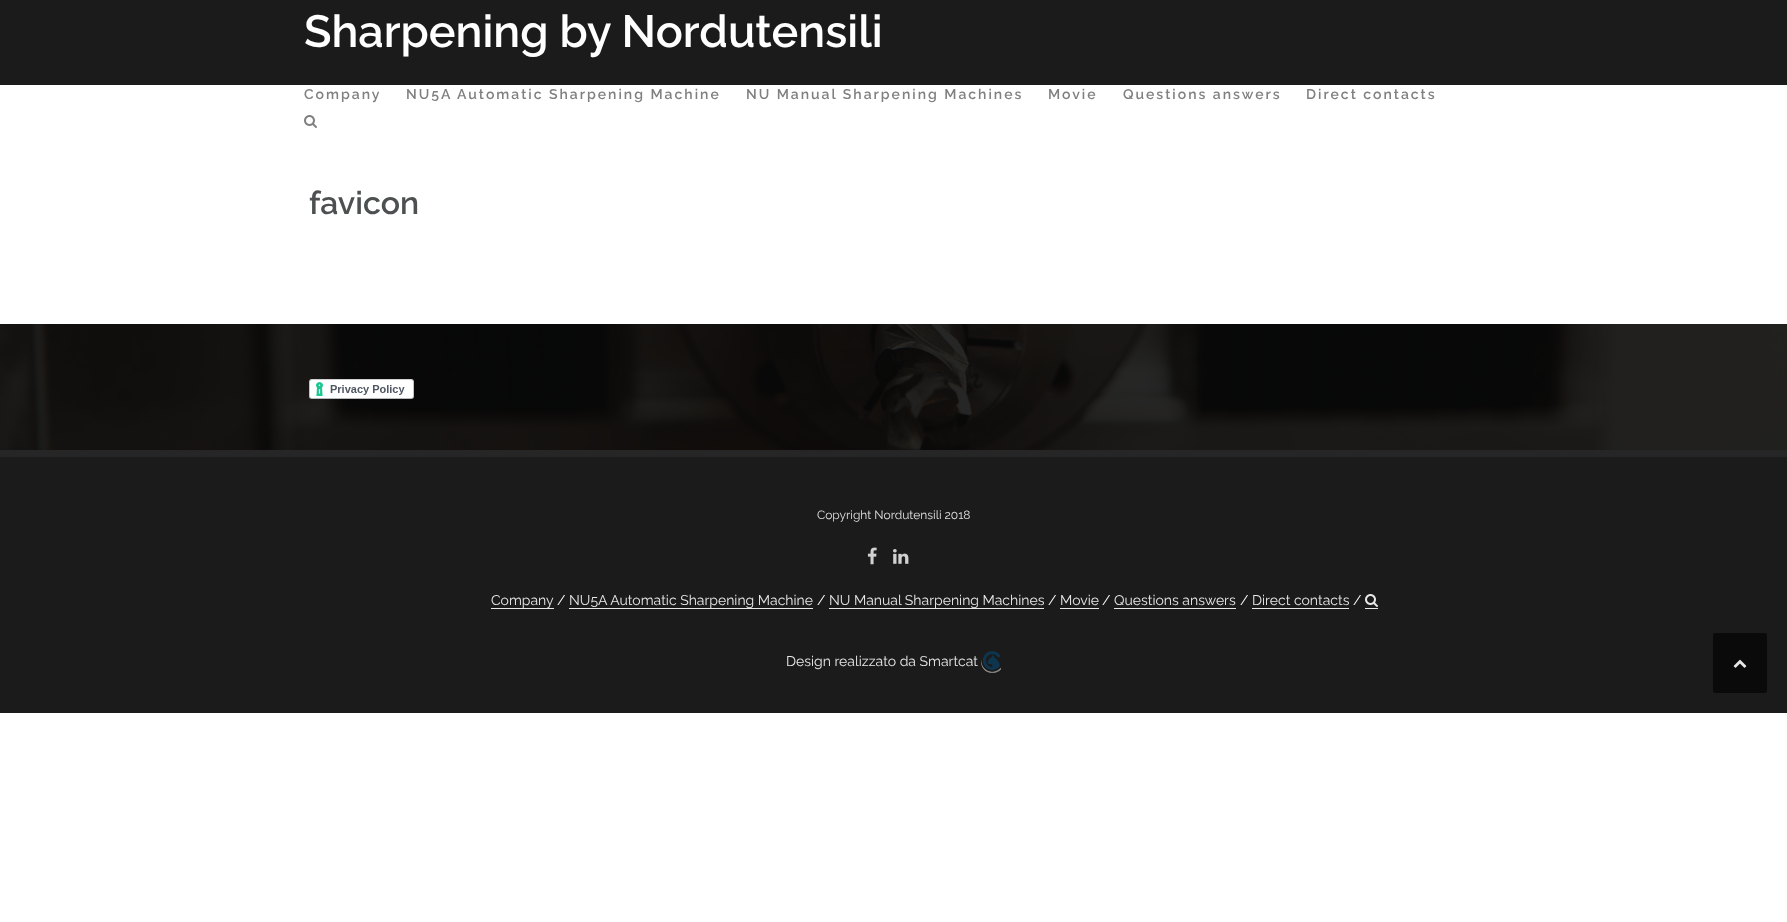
async function draw(canvas) {
  canvas.width = 1787;
  canvas.height = 922;
  const ctx = canvas.getContext('2d');
  ctx.miterLimit = 4;
  ctx.fontKerning = 'normal';
  function label(s, x, y, font, color) {
    ctx.font = font;
    ctx.fillStyle = color;
    ctx.fillText(s, x, y);
  }
  function rect(x, y, w, h, color) {
    ctx.fillStyle = color;
    ctx.fillRect(x, y, w, h);
  }
  function roundedRect(x, y, w, h, r, color) {
    ctx.fillStyle = color;
    ctx.beginPath();
    ctx.roundRect(x, y, w, h, r);
    ctx.fill();
  }
  async function image(src, x, y, w, h) {
    const img = new Image();
    img.src = src;
    await img.decode();
    ctx.drawImage(img, x, y, w, h);
  }

  rect(0, 0, 1787, 922, '#fff');
  rect(0, 450, 1787, 7, '#262626');
  rect(0, 0, 1787, 85, '#1b1b1b');
  label('Sharpening by Nordutensili', 304, 47, '600 45px Raleway', '#fff');
  ctx.letterSpacing = '2px';
  label('Company', 304, 99, '600 14px Raleway', '#808080');
  label('NU5A Automatic Sharpening Machine', 406, 99, '600 14px Raleway', '#808080');
  label('NU Manual Sharpening Machines', 746, 99, '600 14px Raleway', '#808080');
  label('Movie', 1048, 99, '600 14px Raleway', '#808080');
  label('Questions answers', 1123, 99, '600 14px Raleway', '#808080');
  label('Direct contacts', 1306, 99, '600 14px Raleway', '#808080');
  await image('assets/img1.png', 304, 115, 13, 13);
  ctx.letterSpacing = '0px';
  label('favicon', 309, 214, '600 32px Raleway', '#4d5051');
  await image('assets/img8.png', 0, 324, 1787, 126);
  await image('assets/img2.png', 309, 379, 105, 20);
  rect(0, 457, 1787, 256, '#1b1b1b');
  label('Copyright Nordutensili 2018', 817, 519, '12px Raleway', '#e1e1e1');
  await image('assets/img3.png', 867, 547, 10, 18);
  await image('assets/img4.png', 893, 549, 16, 15);
  rect(491, 608, 63, 1, '#e8e8e8');
  label('Company', 491, 605, '14px Raleway', '#e8e8e8');
  label('/', 557, 605, '14px Raleway', '#fff');
  rect(569, 608, 244, 1, '#e8e8e8');
  label('NU5A Automatic Sharpening Machine', 569, 605, '14px Raleway', '#e8e8e8');
  label('/', 817, 605, '14px Raleway', '#fff');
  rect(829, 608, 215, 1, '#e8e8e8');
  label('NU Manual Sharpening Machines', 829, 605, '14px Raleway', '#e8e8e8');
  label('/', 1048, 605, '14px Raleway', '#fff');
  label('Movie', 1060, 605, '14px Raleway', '#e8e8e8');
  rect(1060, 608, 39, 1, '#e8e8e8');
  label('/', 1102, 605, '14px Raleway', '#fff');
  label('Questions answers', 1114, 605, '14px Raleway', '#e8e8e8');
  rect(1114, 608, 122, 1, '#e8e8e8');
  label('/', 1240, 605, '14px Raleway', '#fff');
  label('Direct contacts', 1252, 605, '14px Raleway', '#e8e8e8');
  rect(1252, 608, 97, 1, '#e8e8e8');
  label('/', 1353, 605, '14px Raleway', '#fff');
  rect(1365, 608, 13, 1, '#e8e8e8');
  await image('assets/img5.png', 1365, 594, 13, 13);
  label('Design realizzato da Smartcat', 786, 666, '14px Raleway', '#e8e8e8');
  await image('assets/img6.png', 981, 651, 20, 22);
  roundedRect(1713, 633, 54, 60, 2, '#0a0a0a');
  await image('assets/img7.png', 1733, 659, 14, 9);
}

draw(document.querySelector('canvas'));
